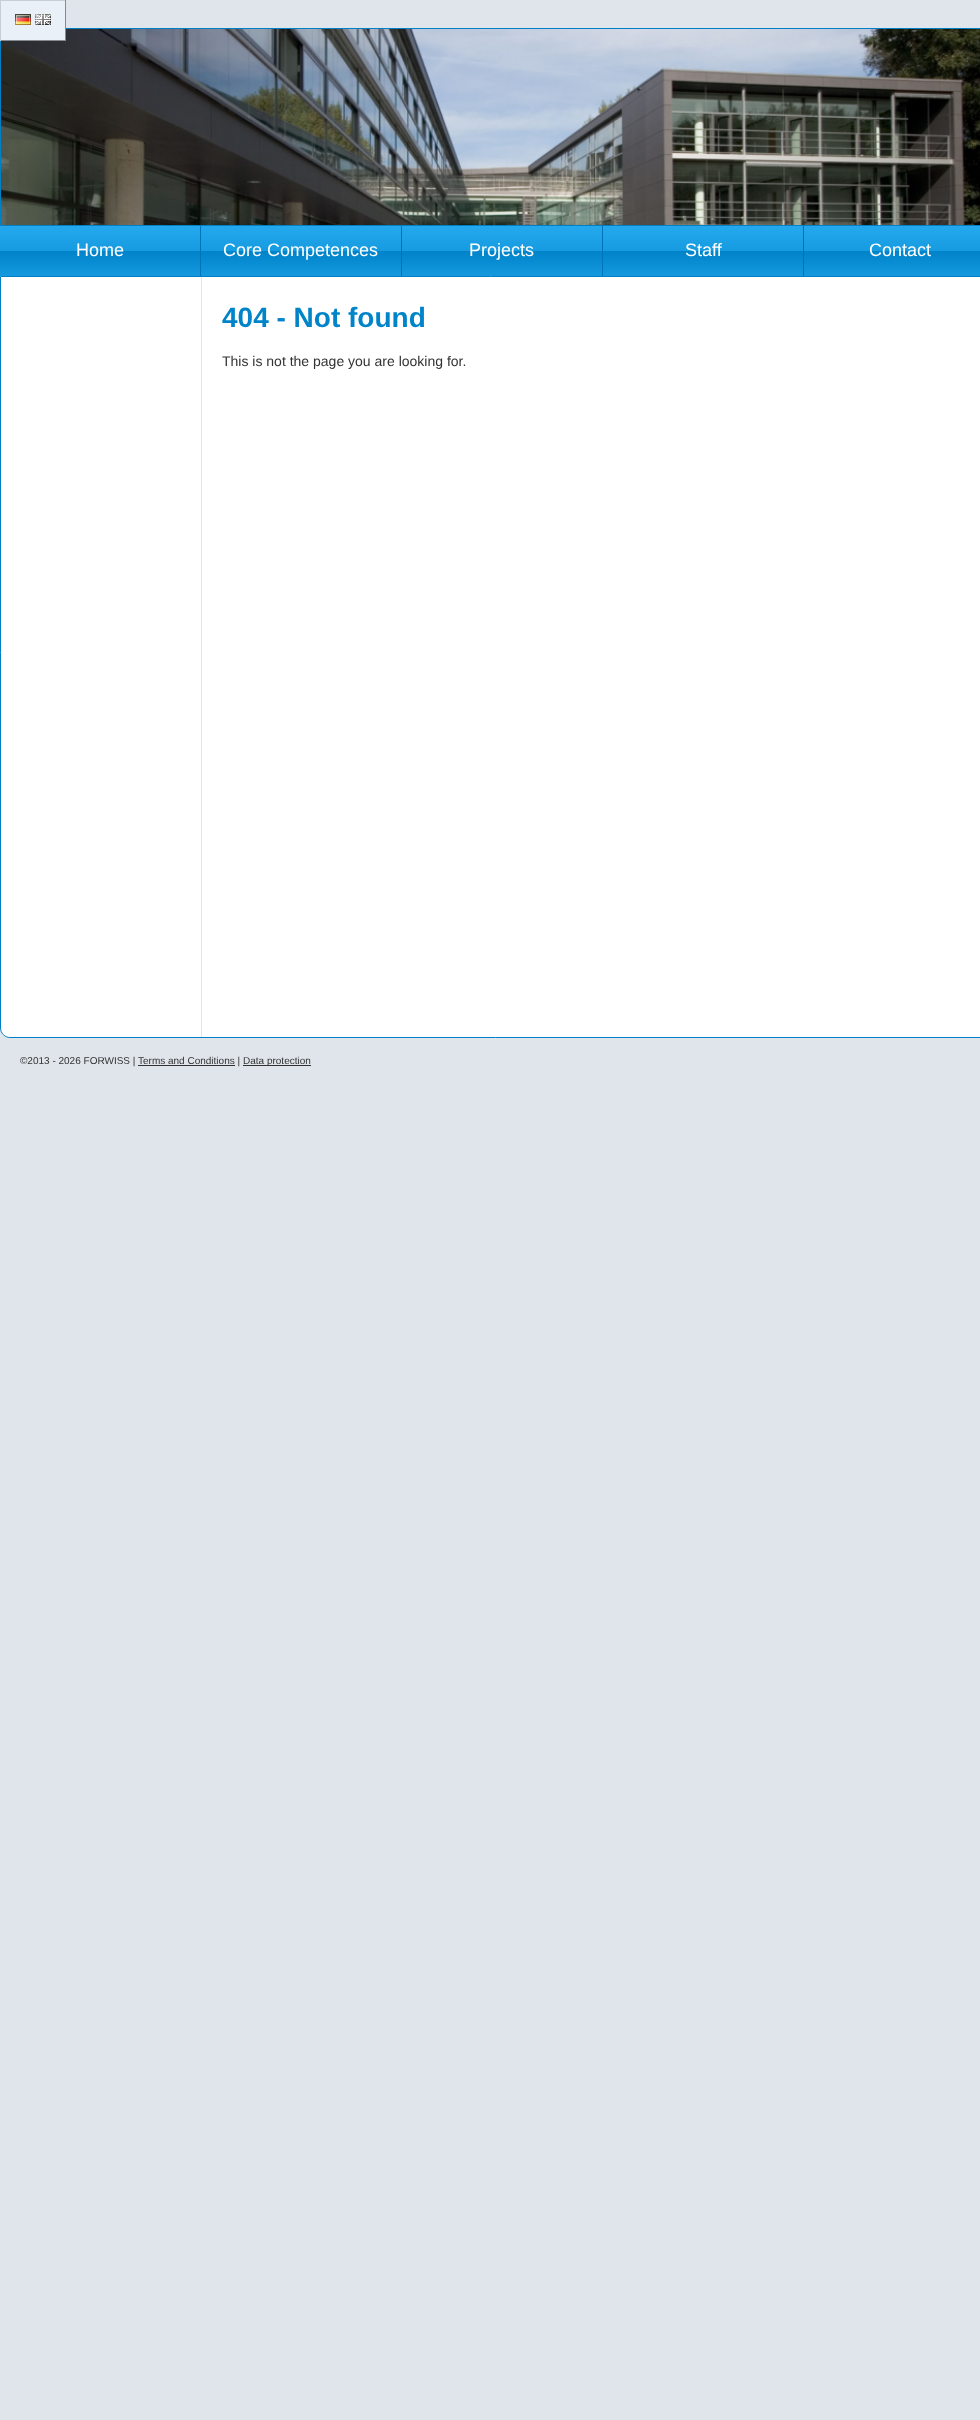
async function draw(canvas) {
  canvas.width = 980;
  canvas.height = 2420;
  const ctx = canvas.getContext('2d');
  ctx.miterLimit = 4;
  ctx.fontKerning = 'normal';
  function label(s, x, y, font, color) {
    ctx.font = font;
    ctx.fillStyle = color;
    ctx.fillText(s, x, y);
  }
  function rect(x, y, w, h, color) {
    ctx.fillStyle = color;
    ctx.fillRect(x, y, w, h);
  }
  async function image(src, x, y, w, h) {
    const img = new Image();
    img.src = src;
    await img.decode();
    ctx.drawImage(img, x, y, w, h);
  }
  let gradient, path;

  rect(0, 0, 980, 2420, '#dfe5eb');
  await image('assets/img3.png', 1, 29, 979, 196);
  ctx.strokeStyle = '#007fc4';
  ctx.strokeRect(0.5, 28.5, 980, 197);
  rect(1, 1, 64, 39, '#eaf0f7');
  rect(0, 0, 66, 1, '#c9ced4');
  rect(65, 0, 1, 41, '#86898d');
  rect(0, 40, 66, 1, '#86898d');
  rect(0, 0, 1, 41, '#c9ced4');
  await image('assets/img1.png', 15, 14, 16, 11);
  await image('assets/img2.png', 35, 14, 16, 11);
  gradient = ctx.createLinearGradient(500, 226, 500, 276);
  gradient.addColorStop(0, '#25a9ee');
  gradient.addColorStop(0.5, '#179be0');
  gradient.addColorStop(0.51, '#0083c8');
  gradient.addColorStop(1, '#1599de');
  ctx.fillStyle = gradient;
  ctx.fillRect(0, 226, 980, 50);
  rect(200, 226, 1, 50, '#0073b8');
  label('Home', 76, 256, '18px Liberation Sans', '#fff');
  rect(401, 226, 1, 50, '#0073b8');
  label('Core Competences', 223, 256, '18px Liberation Sans', '#fff');
  rect(602, 226, 1, 50, '#0073b8');
  label('Projects', 469, 256, '18px Liberation Sans', '#fff');
  rect(803, 226, 1, 50, '#0073b8');
  label('Staff', 685, 256, '18px Liberation Sans', '#fff');
  label('Contact', 869, 256, '18px Liberation Sans', '#fff');
  path = new Path2D('M.5 276.5H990.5V1028C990.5 1033 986 1037.5 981 1037.5H10C5 1037.5 .5 1033 .5 1028Z');
  ctx.fill(path);
  ctx.stroke(path);
  rect(201, 277, 1, 760, '#dfe5eb');
  label('404 - Not found', 222, 327, 'bold 28px Liberation Sans', '#0084c9');
  label('This is not the page you are looking for.', 222, 366, '14px Liberation Sans', '#333');
  label('©2013 - 2026 FORWISS | Terms and Conditions |', 20, 1064, '10px Liberation Sans', '#333');
  rect(243, 1065, 68, 1, '#333');
  label('Data protection', 243, 1064, '10px Liberation Sans', '#333');
  rect(138, 1065, 97, 1, '#333');
}

draw(document.querySelector('canvas'));
